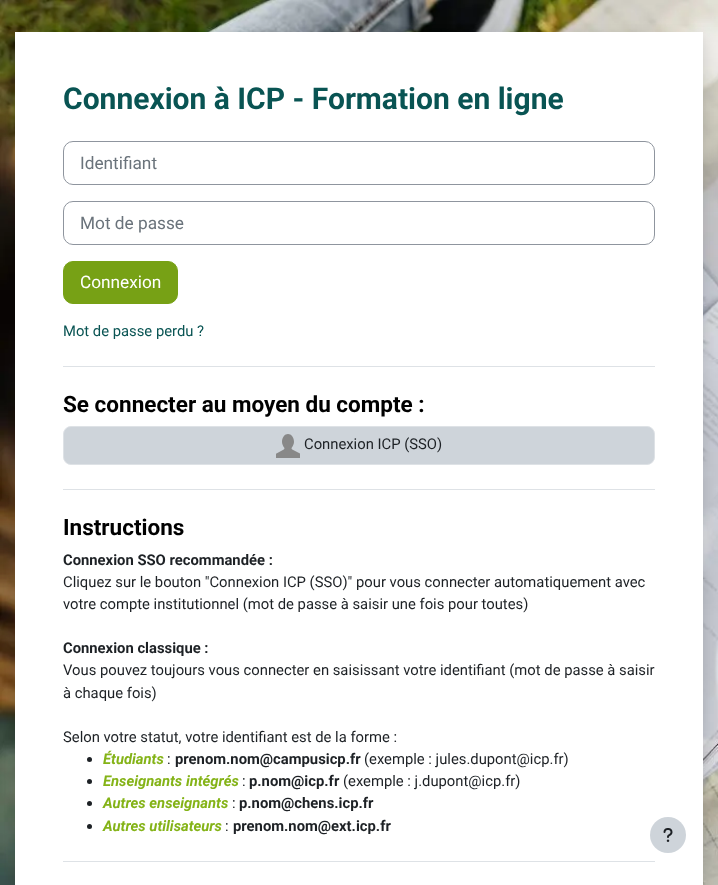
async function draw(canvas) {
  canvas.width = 718;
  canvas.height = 885;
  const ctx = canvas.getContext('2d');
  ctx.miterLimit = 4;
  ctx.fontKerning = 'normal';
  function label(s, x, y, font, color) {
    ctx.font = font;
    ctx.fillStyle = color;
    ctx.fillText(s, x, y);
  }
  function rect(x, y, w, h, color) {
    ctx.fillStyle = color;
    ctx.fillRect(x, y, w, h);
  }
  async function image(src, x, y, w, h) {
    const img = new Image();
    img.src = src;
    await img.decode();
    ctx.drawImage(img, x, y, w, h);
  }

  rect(0, 0, 718, 885, '#fff');
  await image('assets/img1.png', 0, 0, 718, 885);
  ctx.fillStyle = '#00000026';
  ctx.filter = 'blur(8px)';
  ctx.beginPath();
  ctx.rect(15, 40, 688, 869);
  ctx.fill();
  ctx.filter = 'none';
  rect(15, 32, 688, 853, '#fff');
  label('Connexion à ICP - Formation en ligne', 63, 109, 'bold 30px Roboto', '#095453');
  ctx.beginPath();
  ctx.roundRect(63.5, 141.5, 591, 43, 9.5);
  ctx.strokeStyle = '#8f959e';
  ctx.stroke();
  label('Identifiant', 80, 169, '17.25px Roboto', '#6a737b');
  ctx.beginPath();
  ctx.roundRect(63.5, 201.5, 591, 43, 9.5);
  ctx.stroke();
  label('Mot de passe', 80, 229, '17.25px Roboto', '#6a737b');
  ctx.fillStyle = '#77a115';
  ctx.beginPath();
  ctx.roundRect(63.5, 261.5, 114, 42, 9.5);
  ctx.fill();
  ctx.strokeStyle = '#77a115';
  ctx.stroke();
  label('Connexion', 80, 288, '17.25px Roboto', '#fff');
  label('Mot de passe perdu ?', 63, 336, '14.8px Roboto', '#095453');
  rect(63, 366, 592, 1, '#dee2e6');
  label('Se connecter au moyen du compte :', 63, 412, 'bold 22.5px Roboto', '#000');
  ctx.fillStyle = '#ced4da';
  ctx.beginPath();
  ctx.roundRect(63.5, 426.5, 591, 38, 7.5);
  ctx.fill();
  ctx.strokeStyle = '#dee2e6';
  ctx.stroke();
  await image('assets/img2.png', 276, 434, 24, 24);
  label('Connexion ICP (SSO)', 304, 449, '14.8px Roboto', '#1d2125');
  rect(63, 489, 592, 1, '#dee2e6');
  label('Instructions', 63, 535, 'bold 22.5px Roboto', '#000');
  label('Connexion SSO recommandée :', 63, 565, 'bold 14.8px Roboto', '#1d2125');
  label('Cliquez sur le bouton "Connexion ICP (SSO)" pour vous connecter automatiquement avec', 63, 587, '14.8px Roboto', '#1d2125');
  label('votre compte institutionnel (mot de passe à saisir une fois pour toutes)', 63, 609, '14.8px Roboto', '#1d2125');
  label('Connexion classique :', 63, 653, 'bold 14.8px Roboto', '#1d2125');
  label('Vous pouvez toujours vous connecter en saisissant votre identifiant (mot de passe à saisir', 63, 675, '14.8px Roboto', '#1d2125');
  label('à chaque fois)', 63, 698, '14.8px Roboto', '#1d2125');
  label('Selon votre statut, votre identifiant est de la forme :', 63, 742, '14.8px Roboto', '#1d2125');
  ctx.beginPath();
  ctx.arc(89.5, 759.5, 2.5, 0, 2 * Math.PI);
  ctx.fill();
  label('Étudiants', 103, 764, 'italic bold 14.8px Roboto', '#84b317');
  label(':', 167, 764, '14.8px Roboto', '#1d2125');
  label('prenom.nom@campusicp.fr', 175, 764, 'bold 14.8px Roboto', '#1d2125');
  label('(exemple : jules.dupont@icp.fr)', 364, 764, '14.8px Roboto', '#1d2125');
  ctx.beginPath();
  ctx.arc(89.5, 781.5, 2.5, 0, 2 * Math.PI);
  ctx.fill();
  label('Enseignants intégrés', 103, 786, 'italic bold 14.8px Roboto', '#84b317');
  label(':', 242, 786, '14.8px Roboto', '#1d2125');
  label('p.nom@icp.fr', 249, 786, 'bold 14.8px Roboto', '#1d2125');
  label('(exemple : j.dupont@icp.fr)', 343, 786, '14.8px Roboto', '#1d2125');
  ctx.beginPath();
  ctx.arc(89.5, 803.5, 2.5, 0, 2 * Math.PI);
  ctx.fill();
  label('Autres enseignants', 103, 808, 'italic bold 14.8px Roboto', '#84b317');
  label(':', 232, 808, '14.8px Roboto', '#1d2125');
  label('p.nom@chens.icp.fr', 239, 808, 'bold 14.8px Roboto', '#1d2125');
  ctx.beginPath();
  ctx.arc(89.5, 826.5, 2.5, 0, 2 * Math.PI);
  ctx.fill();
  label('Autres utilisateurs', 103, 831, 'italic bold 14.8px Roboto', '#84b317');
  label(':', 225, 831, '14.8px Roboto', '#1d2125');
  label('prenom.nom@ext.icp.fr', 233, 831, 'bold 14.8px Roboto', '#1d2125');
  rect(63, 861, 592, 1, '#dee2e6');
  ctx.fillStyle = '#ced4da';
  ctx.beginPath();
  ctx.arc(668, 835, 18, 0, 2 * Math.PI);
  ctx.fill();
  await image('assets/img3.png', 663, 828, 10, 14);
}

draw(document.querySelector('canvas'));
